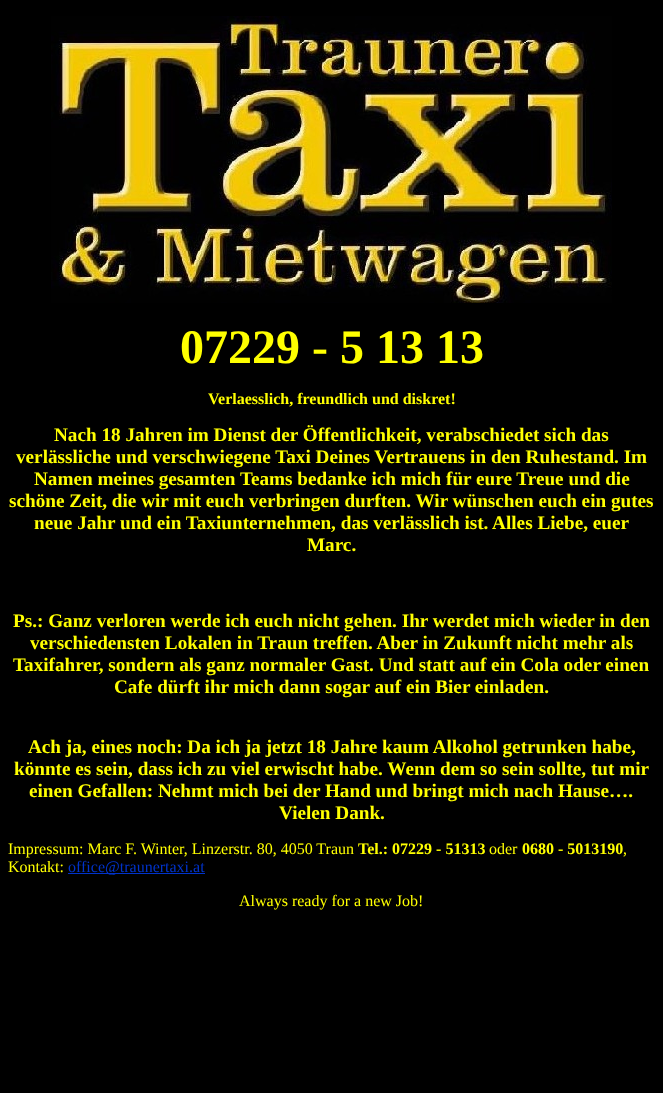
async function draw(canvas) {
  canvas.width = 663;
  canvas.height = 1093;
  const ctx = canvas.getContext('2d');
  ctx.miterLimit = 4;
  ctx.fontKerning = 'normal';
  function label(s, x, y, font, color) {
    ctx.font = font;
    ctx.fillStyle = color;
    ctx.fillText(s, x, y);
  }
  function rect(x, y, w, h, color) {
    ctx.fillStyle = color;
    ctx.fillRect(x, y, w, h);
  }
  async function image(src, x, y, w, h) {
    const img = new Image();
    img.src = src;
    await img.decode();
    ctx.drawImage(img, x, y, w, h);
  }

  rect(0, 0, 663, 1093, '#000');
  await image('assets/img1.png', 51, 16, 561, 287);
  label('07229 - 5 13 13', 180, 363, 'bold 48px Liberation Serif', '#ff0');
  label('Verlaesslich, freundlich und diskret!', 208, 404, 'bold 16px Liberation Serif', '#ff0');
  label('Nach 18 Jahren im Dienst der Öffentlichkeit, verabschiedet sich das', 54, 441, 'bold 19.2px Liberation Serif', '#ff0');
  label('verlässliche und verschwiegene Taxi Deines Vertrauens in den Ruhestand. Im', 16, 463, 'bold 19.2px Liberation Serif', '#ff0');
  label('Namen meines gesamten Teams bedanke ich mich für eure Treue und die', 34, 485, 'bold 19.2px Liberation Serif', '#ff0');
  label('schöne Zeit, die wir mit euch verbringen durften. Wir wünschen euch ein gutes', 9, 507, 'bold 19.2px Liberation Serif', '#ff0');
  label('neue Jahr und ein Taxiunternehmen, das verlässlich ist. Alles Liebe, euer', 34, 529, 'bold 19.2px Liberation Serif', '#ff0');
  label('Marc.', 307, 551, 'bold 19.2px Liberation Serif', '#ff0');
  label('Ps.: Ganz verloren werde ich euch nicht gehen. Ihr werdet mich wieder in den', 13, 627, 'bold 19.2px Liberation Serif', '#ff0');
  label('verschiedensten Lokalen in Traun treffen. Aber in Zukunft nicht mehr als', 30, 649, 'bold 19.2px Liberation Serif', '#ff0');
  label('Taxifahrer, sondern als ganz normaler Gast. Und statt auf ein Cola oder einen', 13, 671, 'bold 19.2px Liberation Serif', '#ff0');
  label('Cafe dürft ihr mich dann sogar auf ein Bier einladen.', 114, 693, 'bold 19.2px Liberation Serif', '#ff0');
  label('Ach ja, eines noch: Da ich ja jetzt 18 Jahre kaum Alkohol getrunken habe,', 28, 753, 'bold 19.2px Liberation Serif', '#ff0');
  label('könnte es sein, dass ich zu viel erwischt habe. Wenn dem so sein sollte, tut mir', 14, 775, 'bold 19.2px Liberation Serif', '#ff0');
  label('einen Gefallen: Nehmt mich bei der Hand und bringt mich nach Hause….', 29, 797, 'bold 19.2px Liberation Serif', '#ff0');
  label('Vielen Dank.', 279, 819, 'bold 19.2px Liberation Serif', '#ff0');
  label('Impressum: Marc F. Winter, Linzerstr. 80, 4050 Traun', 8, 854, '16px Liberation Serif', '#ff0');
  label('Tel.: 07229 - 51313', 358, 854, 'bold 16px Liberation Serif', '#ff0');
  label('oder', 489, 854, '16px Liberation Serif', '#ff0');
  label('0680 - 5013190', 522, 854, 'bold 16px Liberation Serif', '#ff0');
  label(',', 623, 854, '16px Liberation Serif', '#ff0');
  label('Kontakt:', 8, 872, '16px Liberation Serif', '#ff0');
  rect(68, 873, 137, 1, '#03c');
  label('office@traunertaxi.at', 68, 872, '16px Liberation Serif', '#03c');
  label('Always ready for a new Job!', 239, 906, '16px Liberation Serif', '#ff0');
}

draw(document.querySelector('canvas'));
